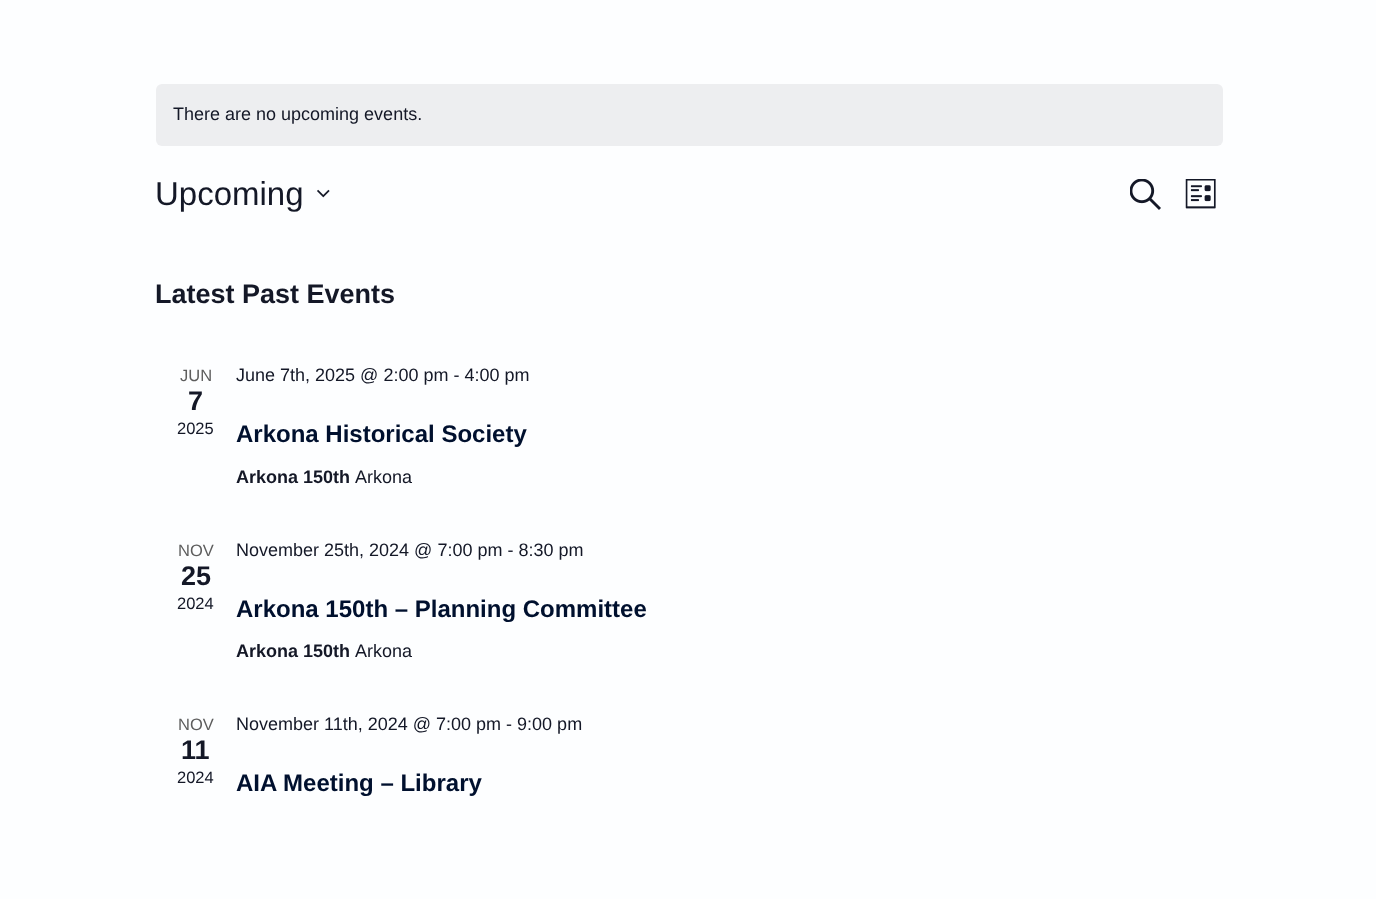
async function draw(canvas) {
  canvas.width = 1376;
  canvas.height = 899;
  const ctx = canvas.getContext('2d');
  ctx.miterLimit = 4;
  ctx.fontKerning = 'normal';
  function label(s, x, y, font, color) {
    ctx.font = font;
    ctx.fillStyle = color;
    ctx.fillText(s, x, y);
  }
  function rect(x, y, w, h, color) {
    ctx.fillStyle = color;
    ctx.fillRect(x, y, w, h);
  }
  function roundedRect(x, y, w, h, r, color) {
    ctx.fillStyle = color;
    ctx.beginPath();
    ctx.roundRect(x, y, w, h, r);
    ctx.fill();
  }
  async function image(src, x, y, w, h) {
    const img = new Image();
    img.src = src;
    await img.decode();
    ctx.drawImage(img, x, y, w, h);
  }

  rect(0, 0, 1376, 899, '#fdfeff');
  roundedRect(156, 84, 1067, 62, 6, '#edeef0');
  label('There are no upcoming events.', 173, 120, '18px Liberation Sans', '#141827');
  label('Upcoming', 155, 205, '33px Liberation Sans', '#141827');
  await image('assets/img1.png', 317, 189, 13, 9);
  await image('assets/img2.png', 1130, 179, 31, 31);
  await image('assets/img3.png', 1185, 179, 31, 30);
  label('Latest Past Events', 155, 303, 'bold 27px Liberation Sans', '#141827');
  label('JUN', 180, 381, '16.5px Liberation Sans', '#5d5d5d');
  label('7', 188, 410, 'bold 27px Liberation Sans', '#141827');
  label('2025', 177, 434, '16.5px Liberation Sans', '#141827');
  label('June 7th, 2025 @ 2:00 pm - 4:00 pm', 236, 381, '18px Liberation Sans', '#141827');
  label('Arkona Historical Society', 236, 442, 'bold 24px Liberation Sans', '#00102e');
  label('Arkona 150th', 236, 483, 'bold 18px Liberation Sans', '#141827');
  label('Arkona', 355, 483, '18px Liberation Sans', '#141827');
  label('NOV', 178, 556, '16.5px Liberation Sans', '#5d5d5d');
  label('25', 181, 585, 'bold 27px Liberation Sans', '#141827');
  label('2024', 177, 609, '16.5px Liberation Sans', '#141827');
  label('November 25th, 2024 @ 7:00 pm - 8:30 pm', 236, 556, '18px Liberation Sans', '#141827');
  label('Arkona 150th – Planning Committee', 236, 617, 'bold 24px Liberation Sans', '#00102e');
  label('Arkona 150th', 236, 657, 'bold 18px Liberation Sans', '#141827');
  label('Arkona', 355, 657, '18px Liberation Sans', '#141827');
  label('NOV', 178, 730, '16.5px Liberation Sans', '#5d5d5d');
  label('11', 181, 759, 'bold 27px Liberation Sans', '#141827');
  label('2024', 177, 783, '16.5px Liberation Sans', '#141827');
  label('November 11th, 2024 @ 7:00 pm - 9:00 pm', 236, 730, '18px Liberation Sans', '#141827');
  label('AIA Meeting – Library', 236, 791, 'bold 24px Liberation Sans', '#00102e');
}

draw(document.querySelector('canvas'));
